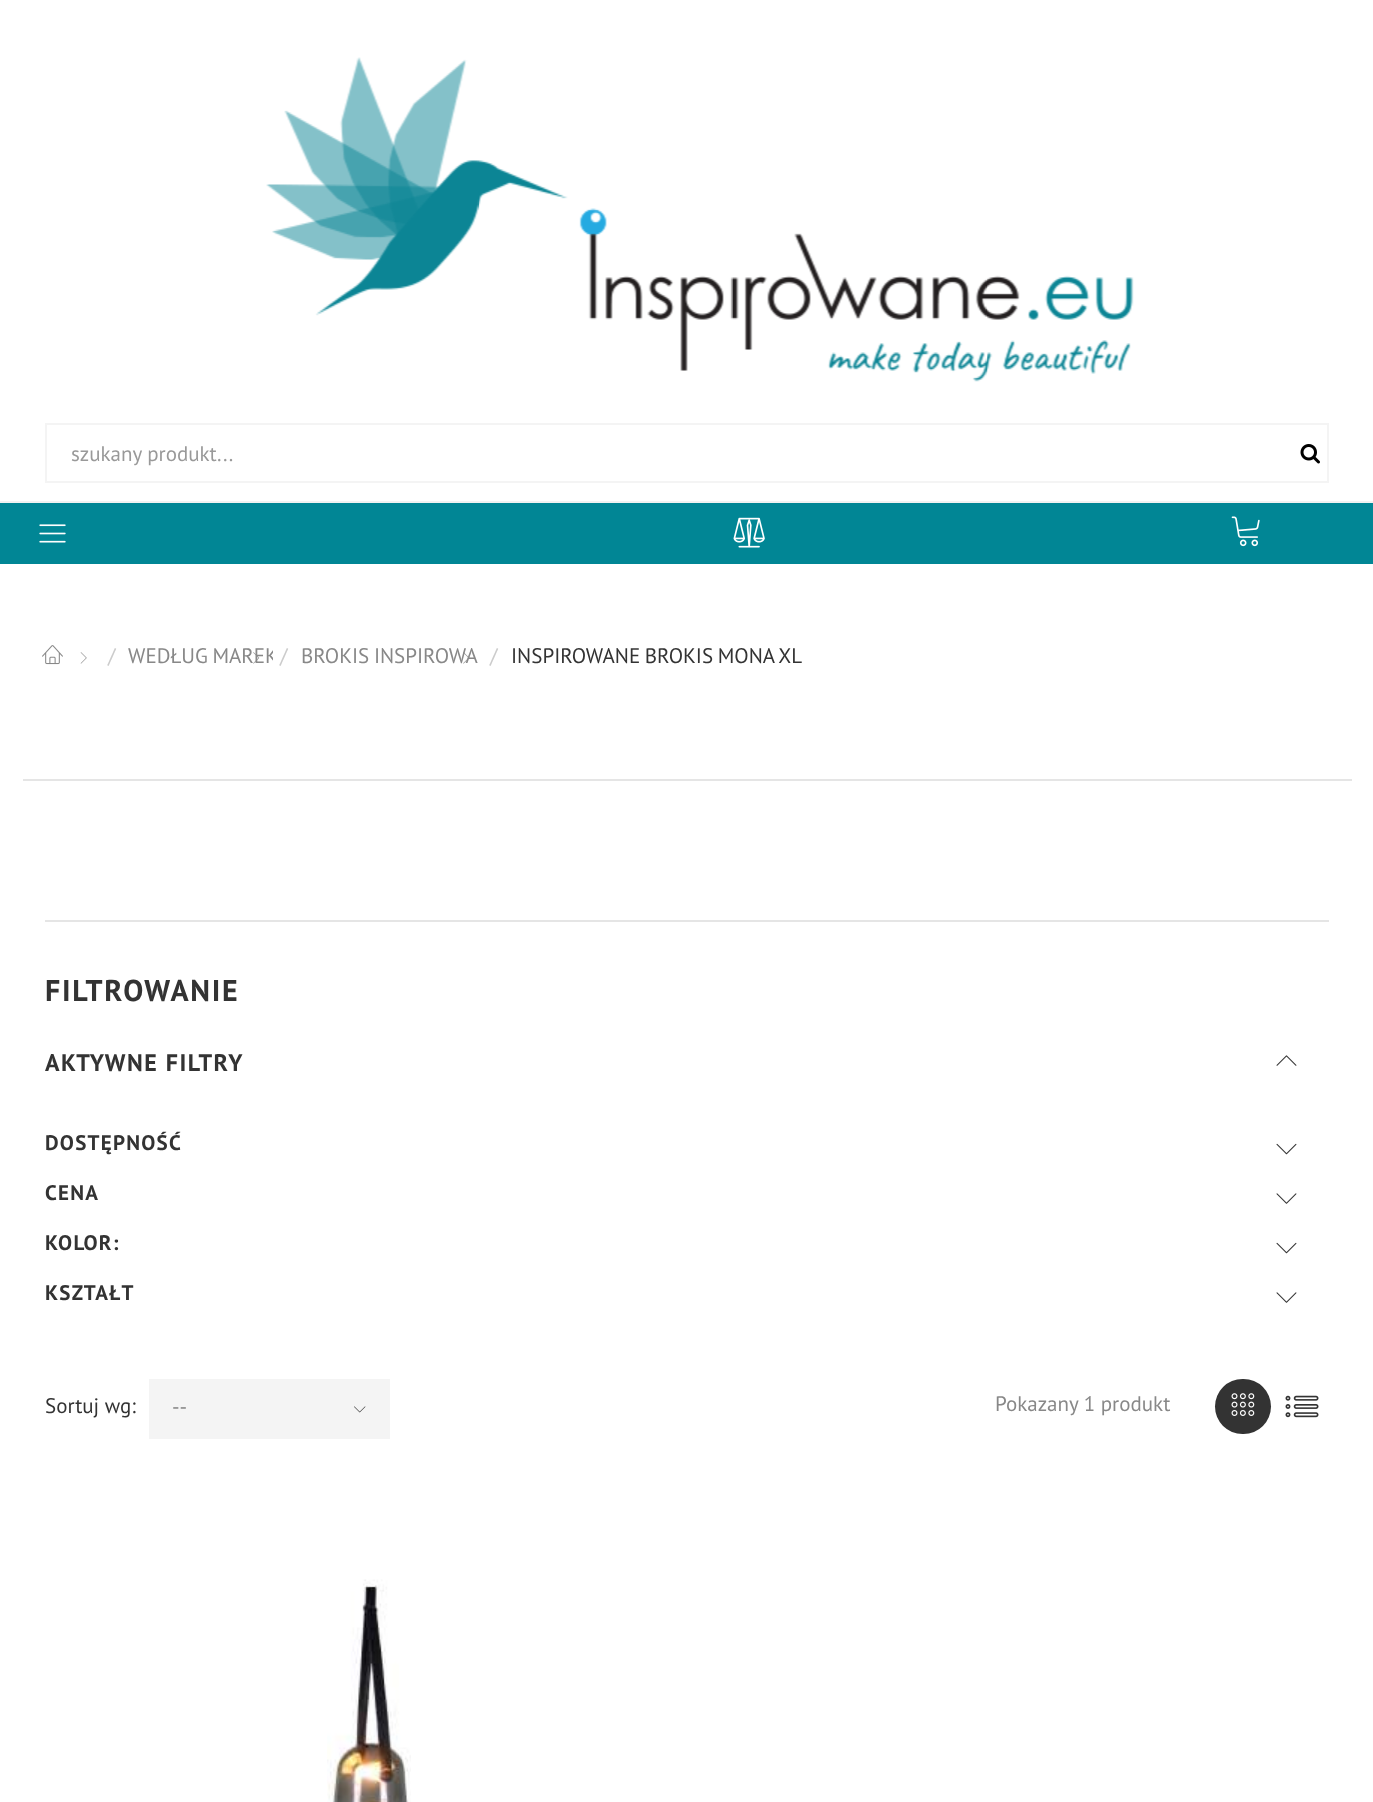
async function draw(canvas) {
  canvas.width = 1373;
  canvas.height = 1802;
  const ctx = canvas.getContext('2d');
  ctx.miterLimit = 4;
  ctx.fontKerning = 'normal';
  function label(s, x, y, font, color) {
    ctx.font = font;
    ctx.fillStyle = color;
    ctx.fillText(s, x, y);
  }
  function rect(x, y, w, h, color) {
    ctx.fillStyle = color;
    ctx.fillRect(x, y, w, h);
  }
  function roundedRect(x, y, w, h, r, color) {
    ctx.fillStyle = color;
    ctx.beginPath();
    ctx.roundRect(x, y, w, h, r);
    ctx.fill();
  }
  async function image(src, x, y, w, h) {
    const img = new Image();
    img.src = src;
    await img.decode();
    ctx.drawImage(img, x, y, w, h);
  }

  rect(0, 0, 1373, 1802, '#fff');
  await image('assets/img1.png', 266, 57, 868, 325);
  ctx.strokeStyle = '#f4f4f4';
  ctx.lineWidth = 2;
  ctx.strokeRect(46, 424, 1282, 58);
  label('szukany produkt...', 71, 461, '21px PT Sans', '#999');
  await image('assets/img2.png', 1300, 444, 20, 20);
  rect(0, 503, 1373, 61, '#018695');
  await image('assets/img3.png', 1231, 516, 29, 31);
  rect(0, 501, 1373, 2, '#f2f2f2');
  await image('assets/img4.png', 39, 524, 27, 19);
  await image('assets/img5.png', 733, 517, 32, 31);
  await image('assets/img6.png', 42, 645, 21, 20);
  await image('assets/img7.png', 80, 652, 7, 12);
  label('/', 108, 663, '21px PT Sans', '#ccc');
  ctx.wordSpacing = '-1px';
  label('WEDŁUG MAREK', 128, 663, '21px PT Sans', '#888');
  await image('assets/img8.png', 253, 652, 7, 12);
  rect(273, 648, 4, 15, '#fff');
  ctx.wordSpacing = '0px';
  label('/', 280, 663, '21px PT Sans', '#ccc');
  ctx.wordSpacing = '-1px';
  label('BROKIS INSPIROWA', 301, 663, '21px PT Sans', '#888');
  await image('assets/img9.png', 463, 652, 5, 12);
  ctx.wordSpacing = '0px';
  label('/', 490, 663, '21px PT Sans', '#ccc');
  ctx.wordSpacing = '-1px';
  label('INSPIROWANE BROKIS MONA XL', 511, 663, '21px PT Sans', '#333');
  rect(23, 779, 1329, 2, '#e5e5e5');
  rect(45, 920, 1284, 2, '#e5e5e5');
  ctx.letterSpacing = '1.75px';
  ctx.wordSpacing = '0px';
  label('FILTROWANIE', 45, 1001, 'bold 30px PT Sans', '#333');
  ctx.letterSpacing = '1.5px';
  label('AKTYWNE FILTRY', 45, 1071, 'bold 24px PT Sans', '#333');
  await image('assets/img10.png', 1276, 1055, 21, 11);
  ctx.letterSpacing = '1.25px';
  label('DOSTĘPNOŚĆ', 45, 1150, 'bold 21px PT Sans', '#333');
  await image('assets/img11.png', 1276, 1143, 21, 12);
  label('CENA', 45, 1200, 'bold 21px PT Sans', '#333');
  await image('assets/img12.png', 1276, 1193, 21, 11);
  label('KOLOR:', 45, 1250, 'bold 21px PT Sans', '#333');
  await image('assets/img11.png', 1276, 1242, 21, 12);
  label('KSZTAŁT', 45, 1300, 'bold 21px PT Sans', '#333');
  await image('assets/img12.png', 1276, 1292, 21, 11);
  ctx.letterSpacing = '0px';
  label('Sortuj wg:', 45, 1413, '21px PT Sans', '#333');
  rect(149, 1379, 241, 60, '#f4f4f4');
  label('--', 172, 1414, '21px PT Sans', '#888');
  await image('assets/img13.png', 354, 1406, 12, 7);
  label('Pokazany 1 produkt', 995, 1411, '21px PT Sans', '#888');
  roundedRect(1215, 1379, 56, 55, 27.5, '#333');
  await image('assets/img14.png', 1231, 1393, 24, 23);
  await image('assets/img15.png', 1285, 1395, 34, 23);
  await image('assets/img16.png', 327, 1579, 84, 223);
}

draw(document.querySelector('canvas'));
